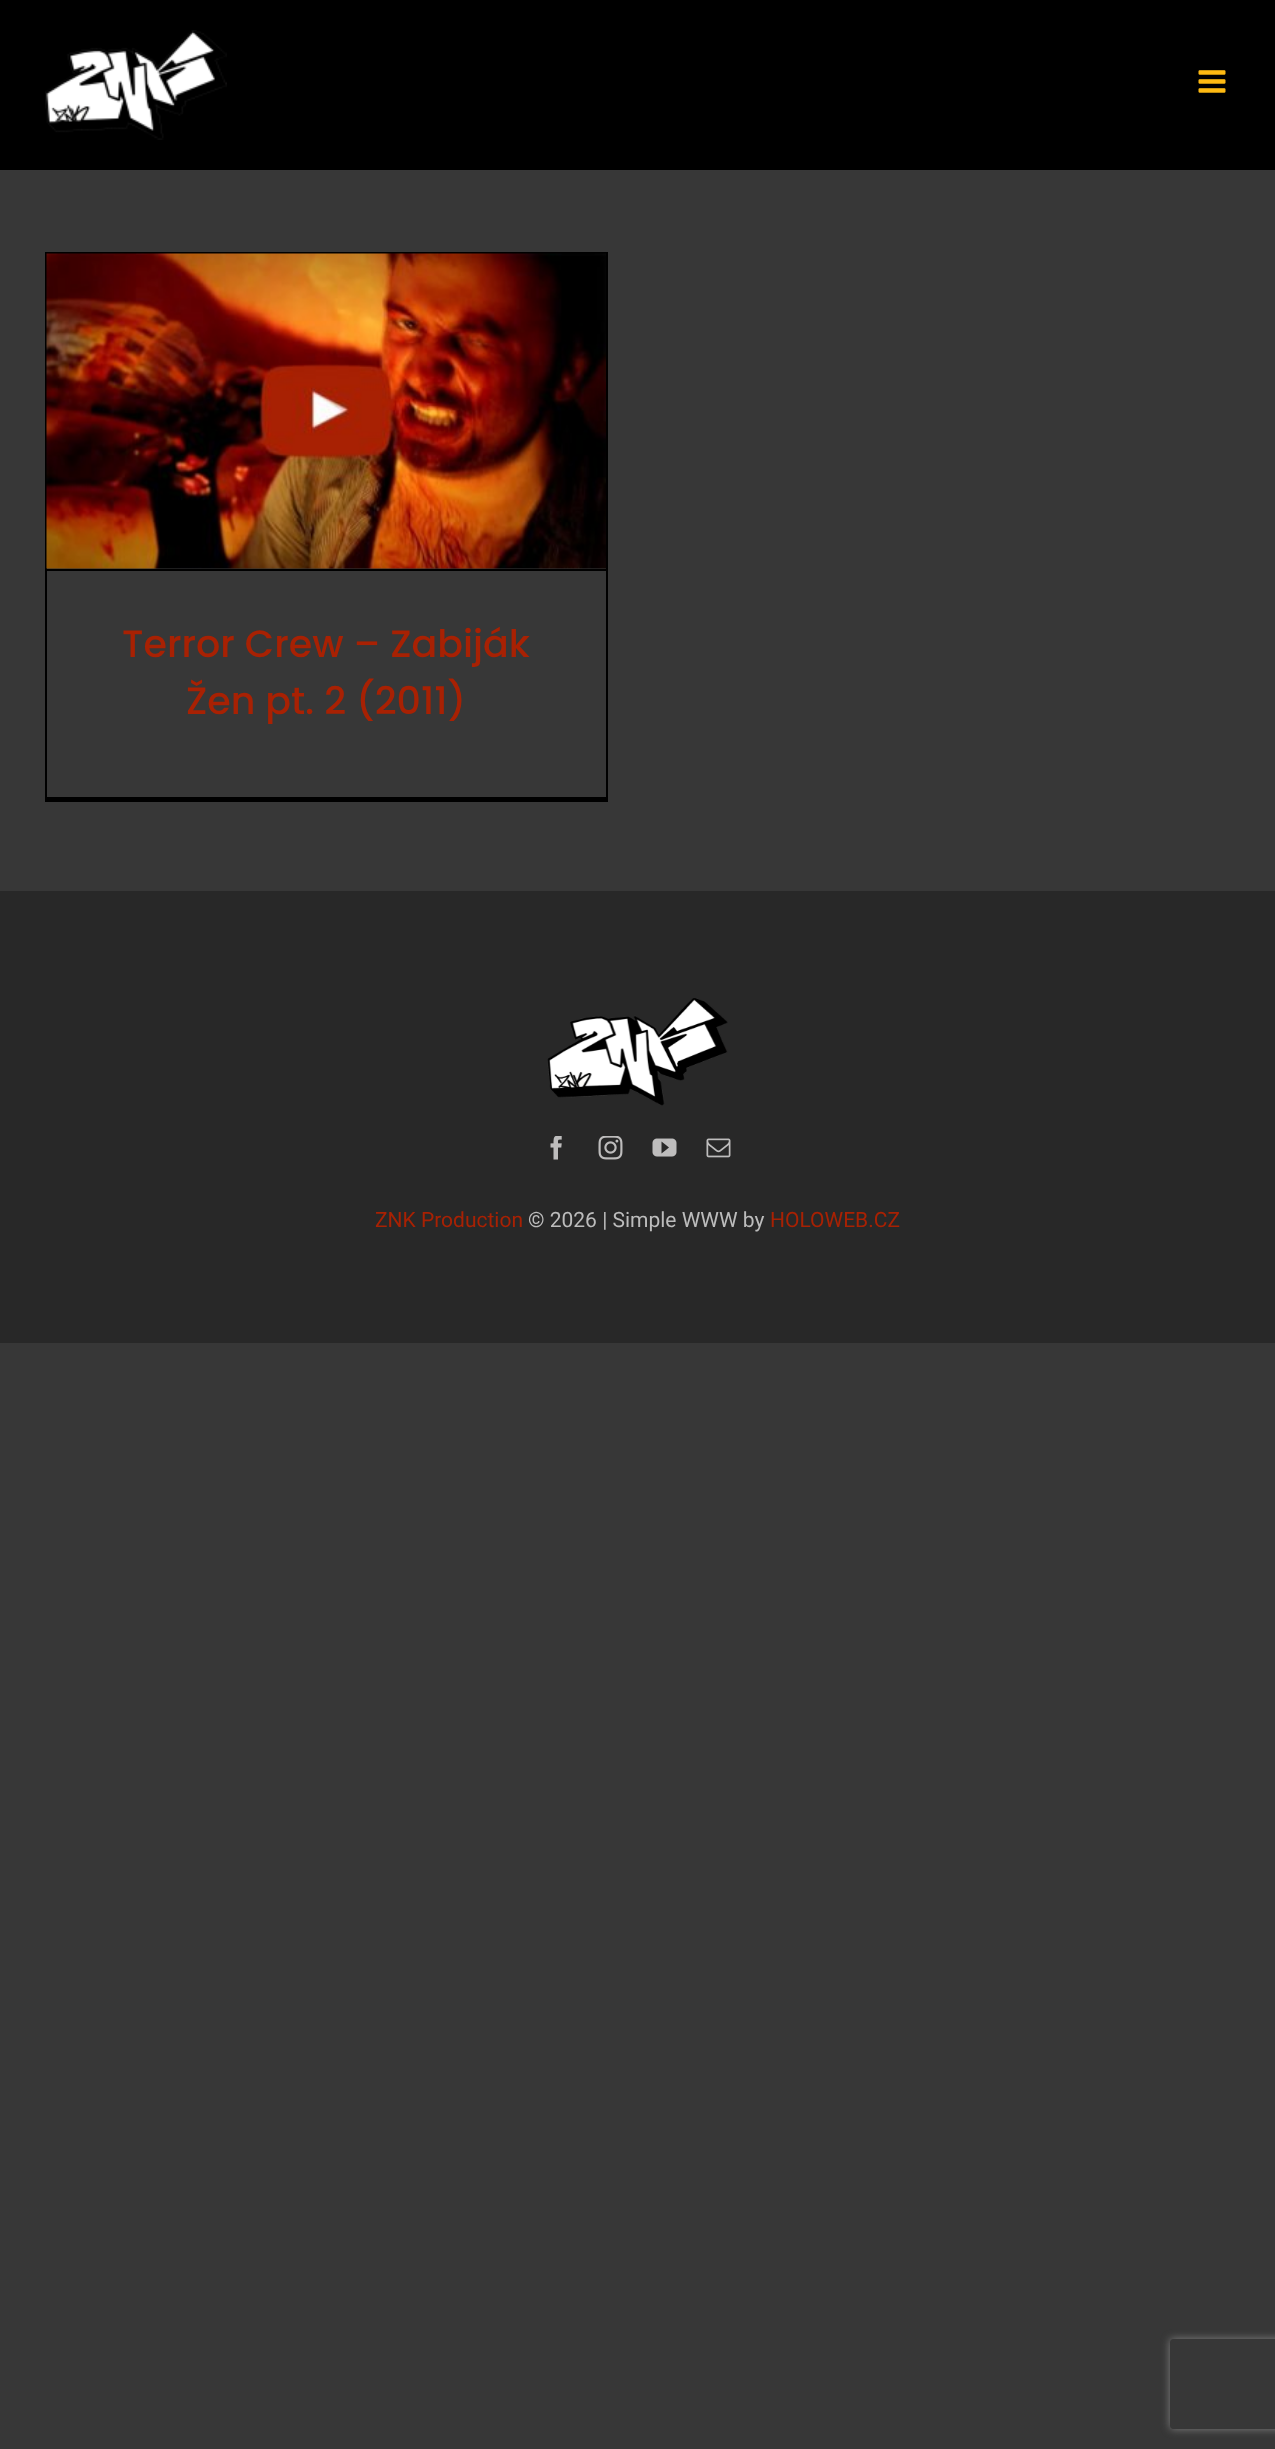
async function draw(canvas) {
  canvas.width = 1275;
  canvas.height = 2449;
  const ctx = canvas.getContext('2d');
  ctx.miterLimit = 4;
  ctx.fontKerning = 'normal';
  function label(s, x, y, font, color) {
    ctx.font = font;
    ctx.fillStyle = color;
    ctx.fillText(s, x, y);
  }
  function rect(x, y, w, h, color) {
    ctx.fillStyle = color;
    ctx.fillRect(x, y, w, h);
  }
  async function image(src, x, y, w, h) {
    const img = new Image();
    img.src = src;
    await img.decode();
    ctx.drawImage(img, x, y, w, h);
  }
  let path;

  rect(0, 0, 1275, 2449, '#373737');
  rect(0, 0, 1275, 170, '#000');
  await image('assets/img1.png', 45, 30, 182, 110);
  await image('assets/img2.png', 1198, 70, 28, 23);
  rect(45, 252, 563, 2, '#000');
  rect(606, 252, 2, 549, '#000');
  rect(45, 797, 563, 5, '#000');
  rect(45, 252, 2, 549, '#000');
  rect(47, 569, 559, 2, '#000');
  await image('assets/img3.png', 46, 253, 560, 316);
  label('Terror Crew – Zabiják', 122, 657, '500 38px Poppins', '#a82103');
  label('Žen pt. 2 (2011)', 186, 714, '500 38px Poppins', '#a82103');
  rect(0, 891, 1275, 452, '#282828');
  await image('assets/img4.png', 547, 998, 181, 108);
  await image('assets/img5.png', 550, 1136, 12, 24);
  await image('assets/img6.png', 598, 1136, 25, 24);
  await image('assets/img7.png', 652, 1138, 25, 19);
  await image('assets/img8.png', 706, 1138, 25, 20);
  label('ZNK Production', 375, 1227, '21px Roboto', '#a82103');
  label('© 2026 | Simple WWW by', 528, 1227, '21px Roboto', '#bcbcbc');
  label('HOLOWEB.CZ', 770, 1227, '21px Roboto', '#a82103');
  ctx.save();
  path = new Path2D('M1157 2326H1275V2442H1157ZM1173 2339H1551C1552.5 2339 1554 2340.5 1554 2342V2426C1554 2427.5 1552.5 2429 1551 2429H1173C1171.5 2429 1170 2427.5 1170 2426V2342C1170 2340.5 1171.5 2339 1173 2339Z');
  ctx.clip(path, 'evenodd');
  ctx.fillStyle = '#808080';
  ctx.filter = 'blur(4px)';
  ctx.beginPath();
  ctx.roundRect(1170, 2339, 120, 90, 3);
  ctx.fill();
  ctx.filter = 'none';
  ctx.restore();
}

draw(document.querySelector('canvas'));
